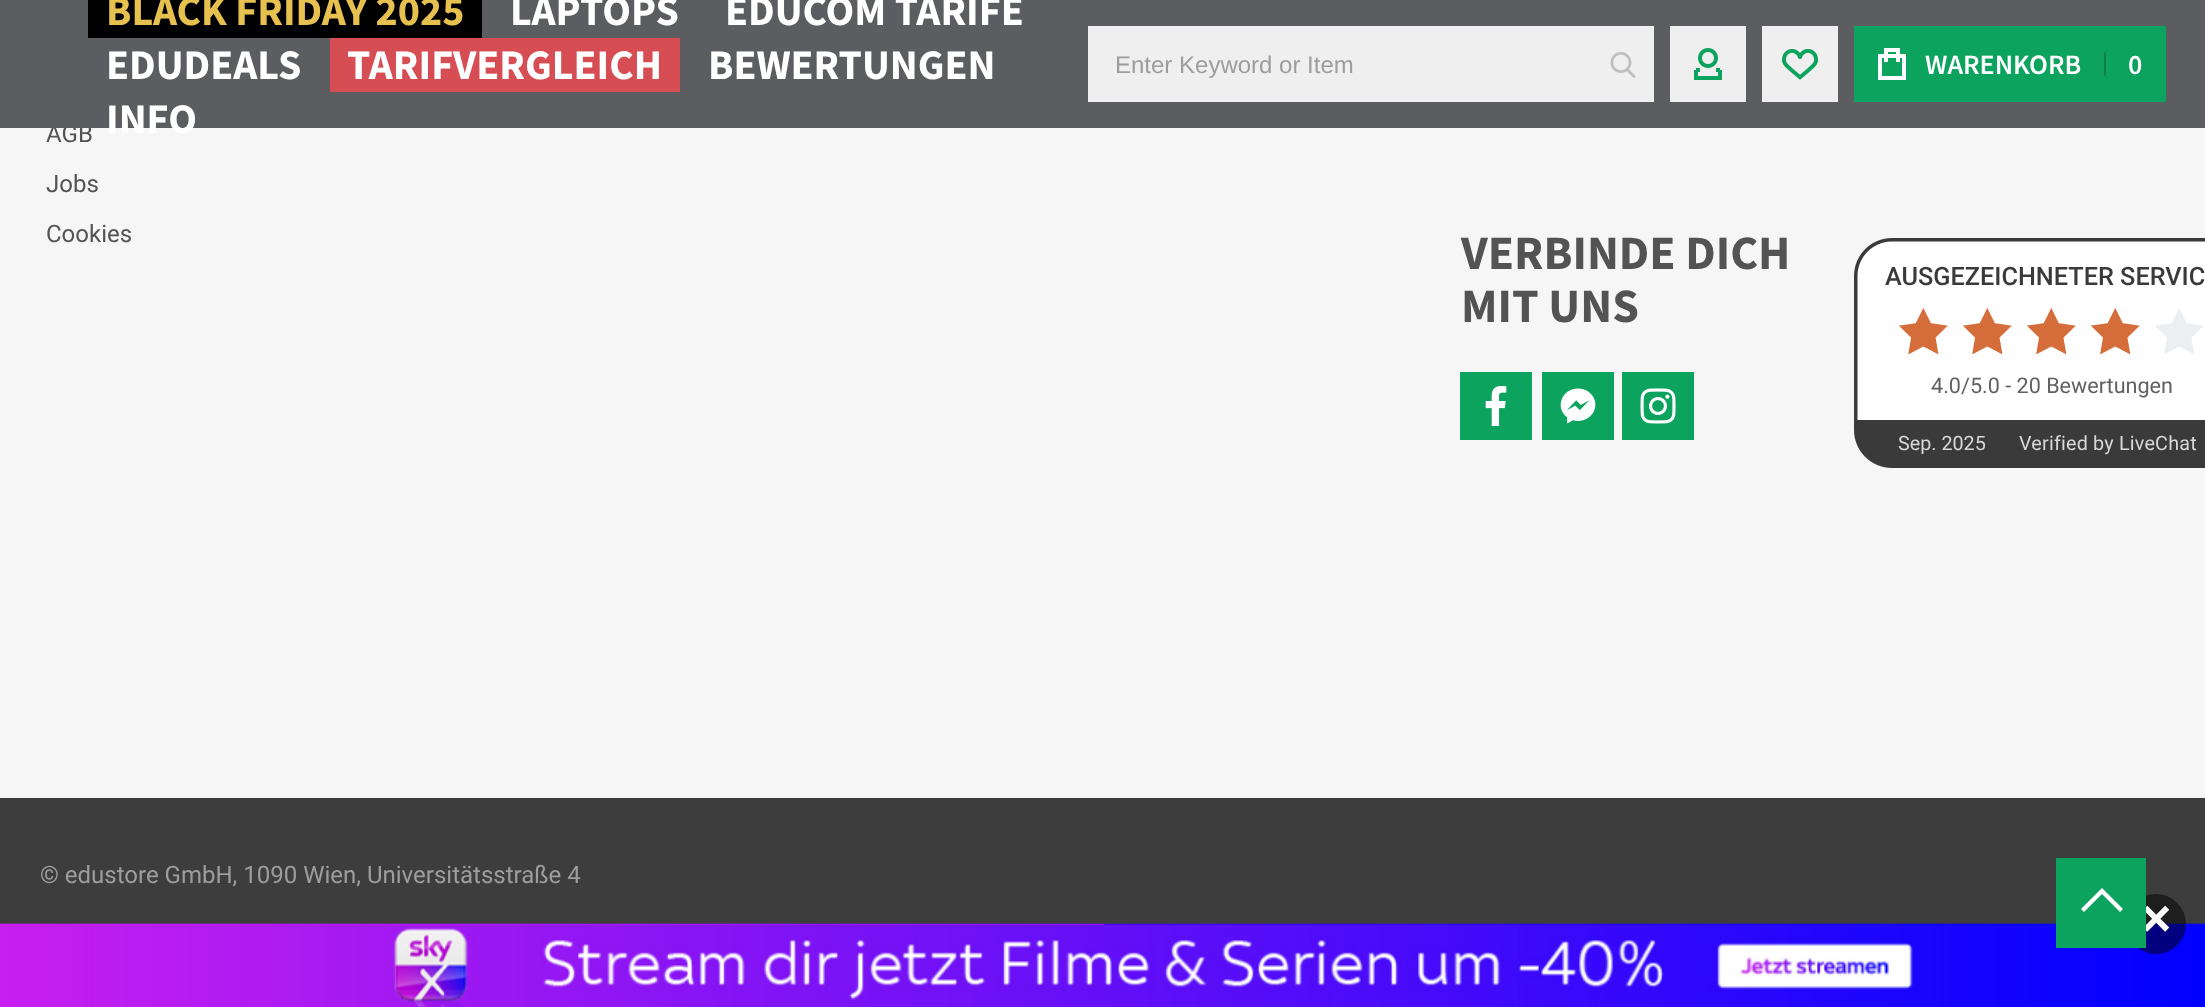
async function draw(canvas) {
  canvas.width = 2205;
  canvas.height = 1007;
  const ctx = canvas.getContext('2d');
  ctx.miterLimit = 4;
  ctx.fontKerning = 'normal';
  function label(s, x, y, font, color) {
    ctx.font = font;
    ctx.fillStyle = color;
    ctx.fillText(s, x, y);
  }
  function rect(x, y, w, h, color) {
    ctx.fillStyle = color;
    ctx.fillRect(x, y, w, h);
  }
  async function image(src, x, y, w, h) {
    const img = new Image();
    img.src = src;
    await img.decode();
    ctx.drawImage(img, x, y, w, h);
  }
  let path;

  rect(0, 0, 2205, 1007, '#f6f6f6');
  label('AGB', 46, 142, '24px Roboto', '#535353');
  rect(0, 0, 2205, 128, '#5b5d61');
  rect(88, 0, 394, 38, '#000');
  label('BLACK FRIDAY 2025', 106, 25, 'bold 42px Source Sans Pro', '#e7c14f');
  label('LAPTOPS', 510, 25, 'bold 42px Source Sans Pro', '#fff');
  label('EDUCOM TARIFE', 725, 25, 'bold 42px Source Sans Pro', '#fff');
  label('EDUDEALS', 106, 79, 'bold 42px Source Sans Pro', '#fff');
  rect(330, 38, 350, 54, '#d64e53');
  label('TARIFVERGLEICH', 347, 79, 'bold 42px Source Sans Pro', '#fff');
  label('BEWERTUNGEN', 708, 79, 'bold 42px Source Sans Pro', '#fff');
  label('INFO', 106, 133, 'bold 42px Source Sans Pro', '#fff');
  rect(1088, 26, 566, 76, '#efefef');
  label('Enter Keyword or Item', 1115, 73, '24px Liberation Sans', '#9d9d9d');
  await image('assets/img1.png', 1610, 52, 26, 26);
  rect(1670, 26, 76, 76, '#efefef');
  await image('assets/img2.png', 1694, 48, 28, 32);
  rect(1762, 26, 76, 76, '#efefef');
  await image('assets/img3.png', 1782, 49, 37, 31);
  rect(1854, 26, 312, 76, '#0ca35e');
  await image('assets/img4.png', 1878, 48, 28, 32);
  label('WARENKORB', 1925, 74, '600 28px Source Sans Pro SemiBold', '#fff');
  rect(2104, 52, 2, 24, '#09814a');
  label('0', 2128, 74, '600 28px Source Sans Pro SemiBold', '#fff');
  label('Jobs', 46, 192, '24px Roboto', '#535353');
  label('Cookies', 46, 242, '24px Roboto', '#535353');
  label('VERBINDE DICH', 1461, 269, 'bold 48px Source Sans Pro', '#535353');
  label('MIT UNS', 1461, 322, 'bold 48px Source Sans Pro', '#535353');
  rect(1460, 372, 72, 68, '#0ca35e');
  await image('assets/img5.png', 1485, 386, 22, 40);
  rect(1542, 372, 72, 68, '#0ca35e');
  await image('assets/img6.png', 1560, 388, 36, 36);
  rect(1622, 372, 72, 68, '#0ca35e');
  await image('assets/img7.png', 1640, 388, 36, 36);
  await image('assets/img8.png', 1854, 238, 351, 230);
  label('AUSGEZEICHNETER SERVIC', 1885, 285, '500 25.25px Roboto', '#3a3a3a');
  label('4.0/5.0 - 20 Bewertungen', 1931, 393, '21.6px Roboto', '#616161');
  label('Sep. 2025', 1898, 450, '19.75px Roboto', '#d8d8d8');
  ctx.letterSpacing = '0.2px';
  label('Verified by LiveChat', 2019, 450, '19.75px Roboto', '#d8d8d8');
  rect(0, 798, 2205, 126, '#3d3d3d');
  ctx.letterSpacing = '0px';
  label('© edustore GmbH, 1090 Wien, Universitätsstraße 4', 40, 883, '24px Roboto', '#9d9d9d');
  rect(1104, 924, 1101, 83, '#0000fe');
  rect(0, 924, 1104, 1, '#c61ef0');
  await image('assets/img9.png', 0, 923, 2205, 84);
  ctx.fillStyle = '#00000080';
  ctx.beginPath();
  ctx.arc(2156, 924, 30, 0, 2 * Math.PI);
  ctx.fill();
  label('×', 2141, 936, 'bold 52px Liberation Sans', '#fff');
  rect(2056, 858, 90, 90, '#0ca35e');
  ctx.fillStyle = '#fff';
  path = new Path2D('M2102 888L2081 909L2084 912L2102 894L2120 912L2123 909Z');
  ctx.fill(path);
}

draw(document.querySelector('canvas'));
